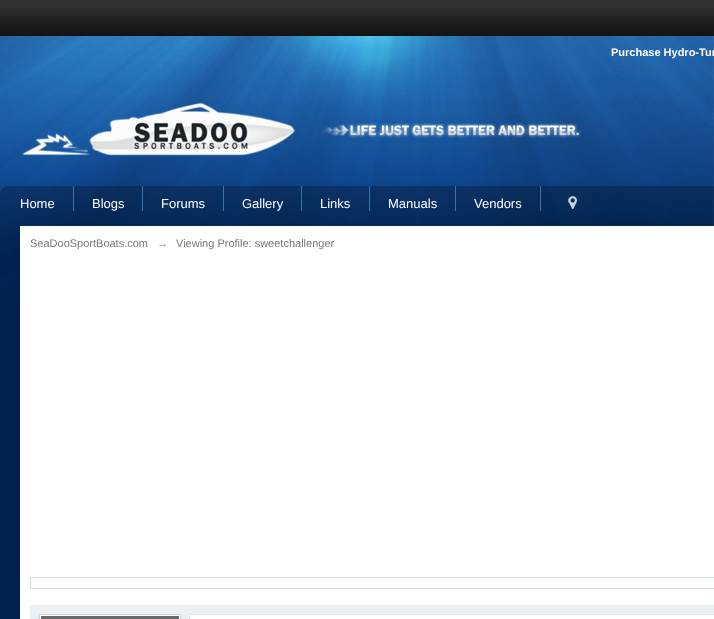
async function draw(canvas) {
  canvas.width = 714;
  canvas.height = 619;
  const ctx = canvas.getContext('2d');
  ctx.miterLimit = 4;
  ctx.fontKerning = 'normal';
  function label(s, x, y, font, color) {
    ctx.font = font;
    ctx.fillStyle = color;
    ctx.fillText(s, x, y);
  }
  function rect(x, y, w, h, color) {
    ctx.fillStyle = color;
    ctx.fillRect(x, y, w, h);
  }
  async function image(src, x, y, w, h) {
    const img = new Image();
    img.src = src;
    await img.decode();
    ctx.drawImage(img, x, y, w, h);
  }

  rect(0, 0, 714, 619, '#fff');
  await image('assets/img1.png', 0, 36, 714, 583);
  rect(0, 0, 714, 8, '#323232');
  await image('assets/img2.png', 0, 8, 714, 28);
  label('Purchase Hydro-Tur', 611, 56, 'bold 11px Liberation Sans', '#fff');
  await image('assets/img3.png', 22, 102, 274, 54);
  await image('assets/img4.png', 320, 123, 261, 15);
  await image('assets/img5.png', 0, 186, 714, 433);
  rect(73, 186, 1, 25, '#3774a7');
  label('Home', 20, 208, '13px Liberation Sans', '#fff');
  rect(142, 186, 1, 25, '#3774a7');
  label('Blogs', 92, 208, '13px Liberation Sans', '#fff');
  rect(223, 186, 1, 25, '#3774a7');
  label('Forums', 161, 208, '13px Liberation Sans', '#fff');
  rect(301, 186, 1, 25, '#3774a7');
  label('Gallery', 242, 208, '13px Liberation Sans', '#fff');
  rect(369, 186, 1, 25, '#3774a7');
  label('Links', 320, 208, '13px Liberation Sans', '#fff');
  rect(455, 186, 1, 25, '#3774a7');
  label('Manuals', 388, 208, '13px Liberation Sans', '#fff');
  rect(540, 186, 1, 25, '#3774a7');
  label('Vendors', 474, 208, '13px Liberation Sans', '#fff');
  await image('assets/img6.png', 568, 196, 9, 13);
  rect(20, 226, 694, 393, '#fff');
  label('SeaDooSportBoats.com', 30, 247, '11px Liberation Sans', '#777');
  label('→', 157, 247, '11px Liberation Sans', '#777');
  label('Viewing Profile: sweetchallenger', 176, 247, '11px Liberation Sans', '#777');
  ctx.strokeStyle = '#d5dde5';
  ctx.strokeRect(30.5, 577.5, 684, 11);
  rect(30, 605, 684, 14, '#ebf0f3');
  ctx.fillStyle = '#0000001a';
  ctx.filter = 'blur(1px)';
  ctx.beginPath();
  ctx.rect(39, 616, 142, 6);
  ctx.fill();
  ctx.filter = 'none';
  ctx.fillStyle = '#fff';
  ctx.beginPath();
  ctx.rect(39.5, 614.5, 141, 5);
  ctx.fill();
  ctx.strokeStyle = '#d5d5d5';
  ctx.stroke();
  rect(41, 616, 138, 3, '#696967');
  ctx.fillStyle = '#fff';
  ctx.beginPath();
  ctx.rect(189.5, 614.5, 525, 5);
  ctx.fill();
  ctx.strokeStyle = '#dbe4ef';
  ctx.stroke();
}

draw(document.querySelector('canvas'));
